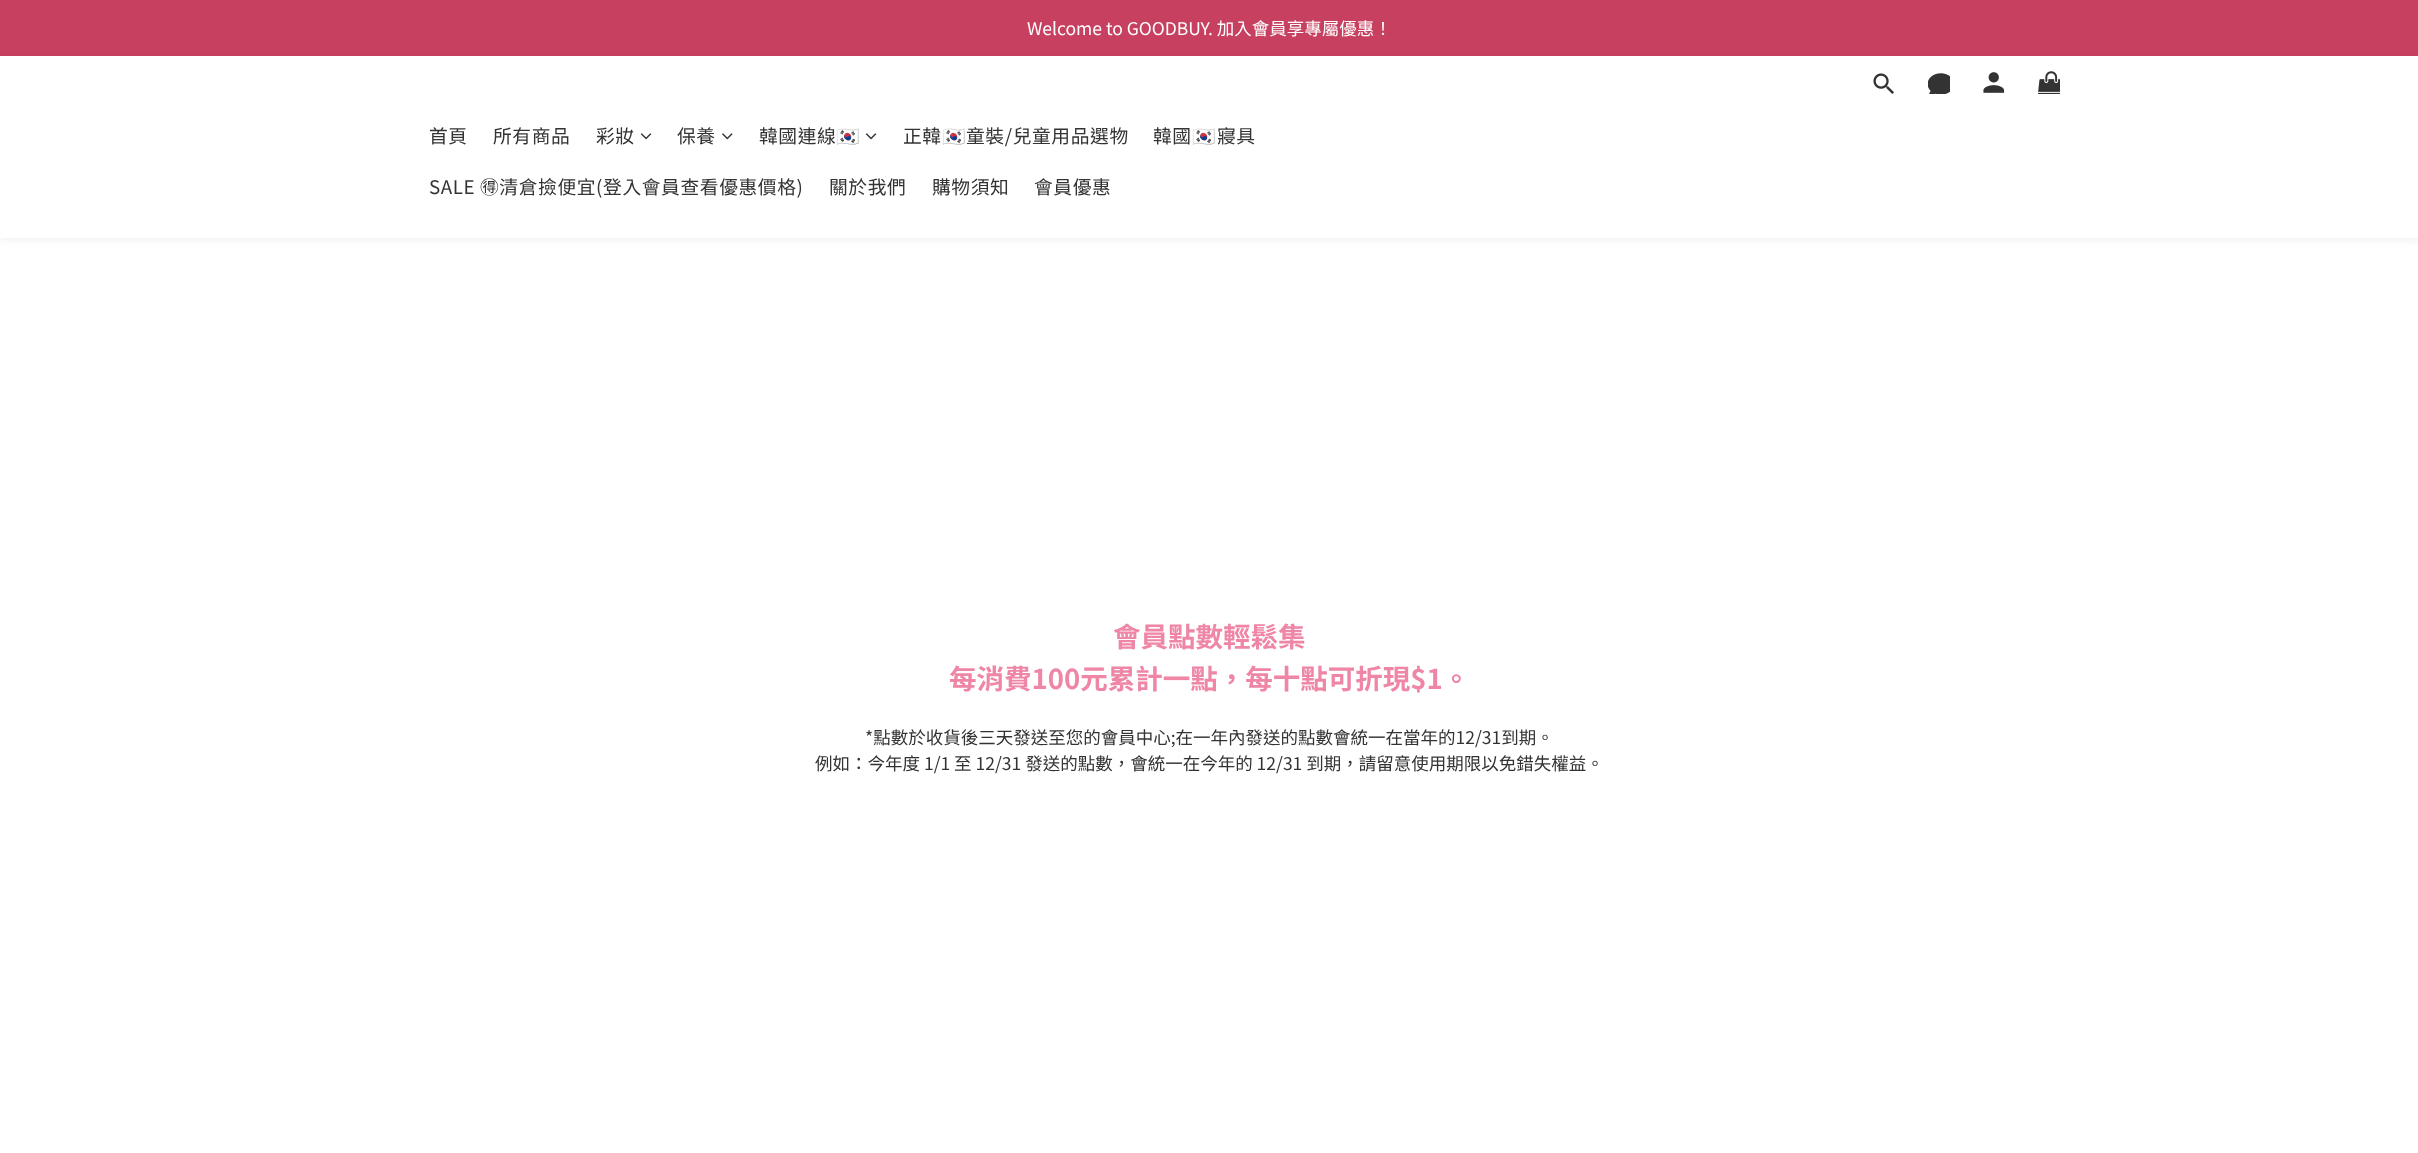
async function draw(canvas) {
  canvas.width = 2418;
  canvas.height = 1153;
  const ctx = canvas.getContext('2d');
  ctx.miterLimit = 4;
  ctx.fontKerning = 'normal';
  function label(s, x, y, font, color) {
    ctx.font = font;
    ctx.fillStyle = color;
    ctx.fillText(s, x, y);
  }
  function rect(x, y, w, h, color) {
    ctx.fillStyle = color;
    ctx.fillRect(x, y, w, h);
  }
  async function image(src, x, y, w, h) {
    const img = new Image();
    img.src = src;
    await img.decode();
    ctx.drawImage(img, x, y, w, h);
  }

  rect(0, 0, 2418, 1153, '#fff');
  rect(0, 0, 2418, 56, '#c74060');
  label('Welcome to GOODBUY. 加入會員享專屬優惠！', 1027, 35, '17.5px Noto Sans TC', '#fff');
  ctx.fillStyle = '#0000000f';
  ctx.filter = 'blur(4px)';
  ctx.beginPath();
  ctx.rect(0, 59, 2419, 181);
  ctx.fill();
  ctx.filter = 'none';
  rect(0, 56, 2418, 182, '#fff');
  await image('assets/img1.png', 1873, 73, 21, 21);
  await image('assets/img2.png', 1928, 73, 22, 21);
  await image('assets/img3.png', 1983, 72, 22, 21);
  await image('assets/img4.png', 2038, 71, 22, 23);
  ctx.letterSpacing = '0.6px';
  label('首頁', 429, 143, '18.75px Noto Sans TC', '#333');
  label('所有商品', 493, 143, '18.75px Noto Sans TC', '#333');
  label('彩妝', 596, 143, '18.75px Noto Sans TC', '#333');
  await image('assets/img5.png', 640, 133, 12, 7);
  label('保養', 677, 143, '18.75px Noto Sans TC', '#333');
  await image('assets/img6.png', 722, 133, 11, 7);
  label('韓國連線', 759, 143, '18.75px Noto Sans TC', '#333');
  label('🇰🇷', 836, 143, '18.75px Noto Color Emoji', '#333');
  await image('assets/img5.png', 865, 133, 12, 7);
  label('正韓', 903, 143, '18.75px Noto Sans TC', '#333');
  label('🇰🇷', 942, 143, '18.75px Noto Color Emoji', '#333');
  label('童裝/兒童用品選物', 966, 143, '18.75px Noto Sans TC', '#333');
  label('韓國', 1153, 143, '18.75px Noto Sans TC', '#333');
  label('🇰🇷', 1192, 143, '18.75px Noto Color Emoji', '#333');
  label('寢具', 1217, 143, '18.75px Noto Sans TC', '#333');
  label('SALE 🉐清倉撿便宜(登入會員查看優惠價格)', 429, 194, '18.75px Noto Sans TC', '#333');
  label('關於我們', 829, 194, '18.75px Noto Sans TC', '#333');
  label('購物須知', 932, 194, '18.75px Noto Sans TC', '#333');
  label('會員優惠', 1034, 194, '18.75px Noto Sans TC', '#333');
  ctx.letterSpacing = '0px';
  label('會員點數輕鬆集', 1113, 647, 'bold 27.5px Noto Sans TC', '#ef86a6');
  label('每消費100元累計一點，每十點可折現$1。', 949, 689, 'bold 27.5px Noto Sans TC', '#ef86a6');
  label('*點數於收貨後三天發送至您的會員中心;在一年內發送的點數會統一在當年的12/31到期。', 865, 744, '17.5px Noto Sans TC', '#333');
  label('例如：今年度 1/1 至 12/31 發送的點數，會統一在今年的 12/31 到期，請留意使用期限以免錯失權益。', 815, 770, '17.5px Noto Sans TC', '#333');
}

draw(document.querySelector('canvas'));
